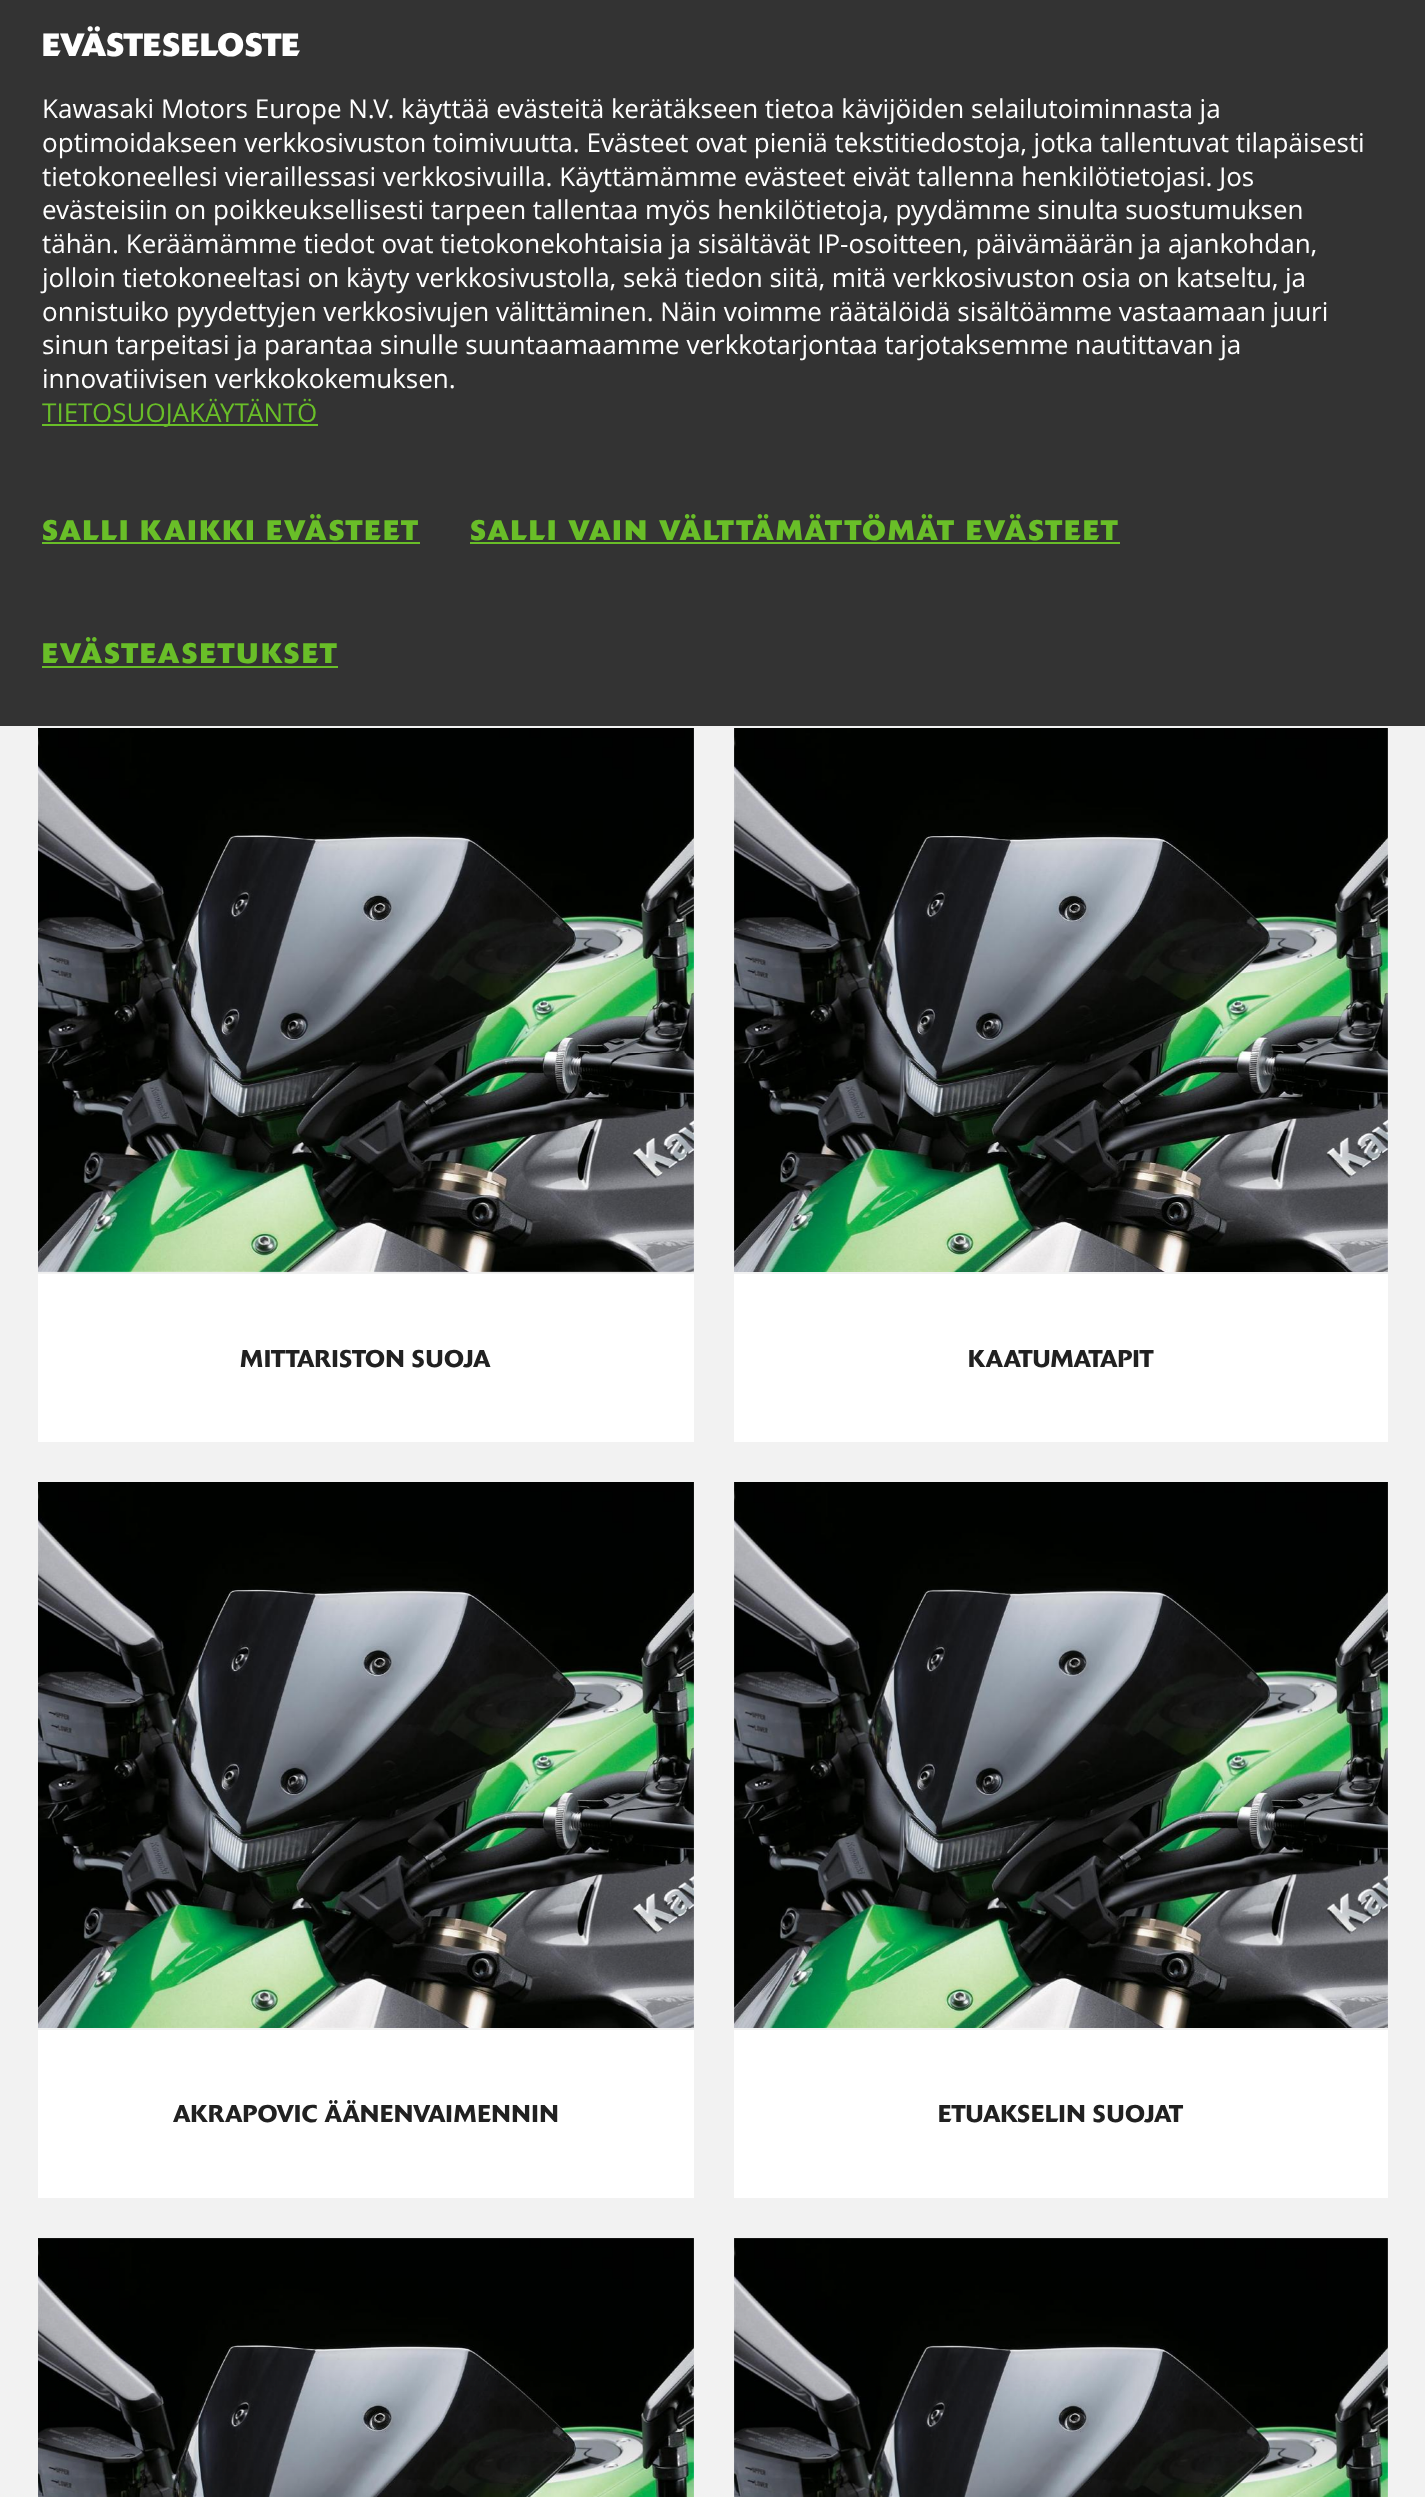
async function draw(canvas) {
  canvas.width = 1425;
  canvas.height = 2497;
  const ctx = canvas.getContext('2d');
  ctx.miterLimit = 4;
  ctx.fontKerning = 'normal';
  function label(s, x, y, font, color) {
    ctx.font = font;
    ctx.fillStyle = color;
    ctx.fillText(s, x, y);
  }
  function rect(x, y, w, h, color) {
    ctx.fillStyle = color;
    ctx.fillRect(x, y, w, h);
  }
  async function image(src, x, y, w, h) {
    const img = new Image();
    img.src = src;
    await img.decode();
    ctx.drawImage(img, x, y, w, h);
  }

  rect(0, 0, 1425, 2497, '#f2f2f2');
  rect(0, 0, 1425, 726, '#333');
  label('EVÄSTESELOSTE', 42, 56, 'bold 32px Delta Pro', '#fff');
  label('Kawasaki Motors Europe N.V. käyttää evästeitä kerätäkseen tietoa kävijöiden selailutoiminnasta ja', 42, 118, '26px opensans', '#fff');
  label('optimoidakseen verkkosivuston toimivuutta. Evästeet ovat pieniä tekstitiedostoja, jotka tallentuvat tilapäisesti', 42, 152, '26px opensans', '#fff');
  label('tietokoneellesi vieraillessasi verkkosivuilla. Käyttämämme evästeet eivät tallenna henkilötietojasi. Jos', 42, 186, '26px opensans', '#fff');
  label('evästeisiin on poikkeuksellisesti tarpeen tallentaa myös henkilötietoja, pyydämme sinulta suostumuksen', 42, 219, '26px opensans', '#fff');
  label('tähän. Keräämämme tiedot ovat tietokonekohtaisia ja sisältävät IP-osoitteen, päivämäärän ja ajankohdan,', 42, 253, '26px opensans', '#fff');
  label('jolloin tietokoneeltasi on käyty verkkosivustolla, sekä tiedon siitä, mitä verkkosivuston osia on katseltu, ja', 42, 287, '26px opensans', '#fff');
  label('onnistuiko pyydettyjen verkkosivujen välittäminen. Näin voimme räätälöidä sisältöämme vastaamaan juuri', 42, 321, '26px opensans', '#fff');
  label('sinun tarpeitasi ja parantaa sinulle suuntaamaamme verkkotarjontaa tarjotaksemme nautittavan ja', 42, 354, '26px opensans', '#fff');
  label('innovatiivisen verkkokokemuksen.', 42, 388, '26px opensans', '#fff');
  rect(42, 424, 276, 2, '#69be28');
  label('TIETOSUOJAKÄYTÄNTÖ', 42, 422, '26px opensans', '#69be28');
  ctx.letterSpacing = '2px';
  label('SALLI KAIKKI EVÄSTEET', 42, 540, 'bold 28px Delta Pro', '#69be28');
  rect(42, 542, 378, 2, '#69be28');
  label('SALLI VAIN VÄLTTÄMÄTTÖMÄT EVÄSTEET', 470, 540, 'bold 28px Delta Pro', '#69be28');
  rect(470, 542, 650, 2, '#69be28');
  label('EVÄSTEASETUKSET', 42, 663, 'bold 28px Delta Pro', '#69be28');
  rect(42, 666, 296, 2, '#69be28');
  rect(38, 728, 656, 714, '#fff');
  rect(38, 1272, 656, 2, '#f2f2f2');
  await image('assets/img1.png', 38, 728, 656, 545);
  ctx.letterSpacing = '0px';
  label('MITTARISTON SUOJA', 240, 1367, '500 24px Delta Pro', '#212121');
  rect(734, 728, 654, 714, '#fff');
  await image('assets/img2.png', 734, 728, 654, 544);
  rect(734, 1272, 654, 2, '#f2f2f2');
  label('KAATUMATAPIT', 968, 1367, '500 24px Delta Pro', '#212121');
  rect(38, 1482, 656, 716, '#fff');
  await image('assets/img3.png', 38, 1482, 656, 546);
  rect(38, 2028, 656, 2, '#f2f2f2');
  label('AKRAPOVIC ÄÄNENVAIMENNIN', 173, 2122, '500 24px Delta Pro', '#212121');
  rect(734, 1482, 654, 716, '#fff');
  await image('assets/img4.png', 734, 1482, 654, 546);
  rect(734, 2028, 654, 2, '#f2f2f2');
  label('ETUAKSELIN SUOJAT', 938, 2122, '500 24px Delta Pro', '#212121');
  await image('assets/img5.png', 38, 2238, 656, 259);
  await image('assets/img6.png', 734, 2238, 654, 259);
}

draw(document.querySelector('canvas'));
